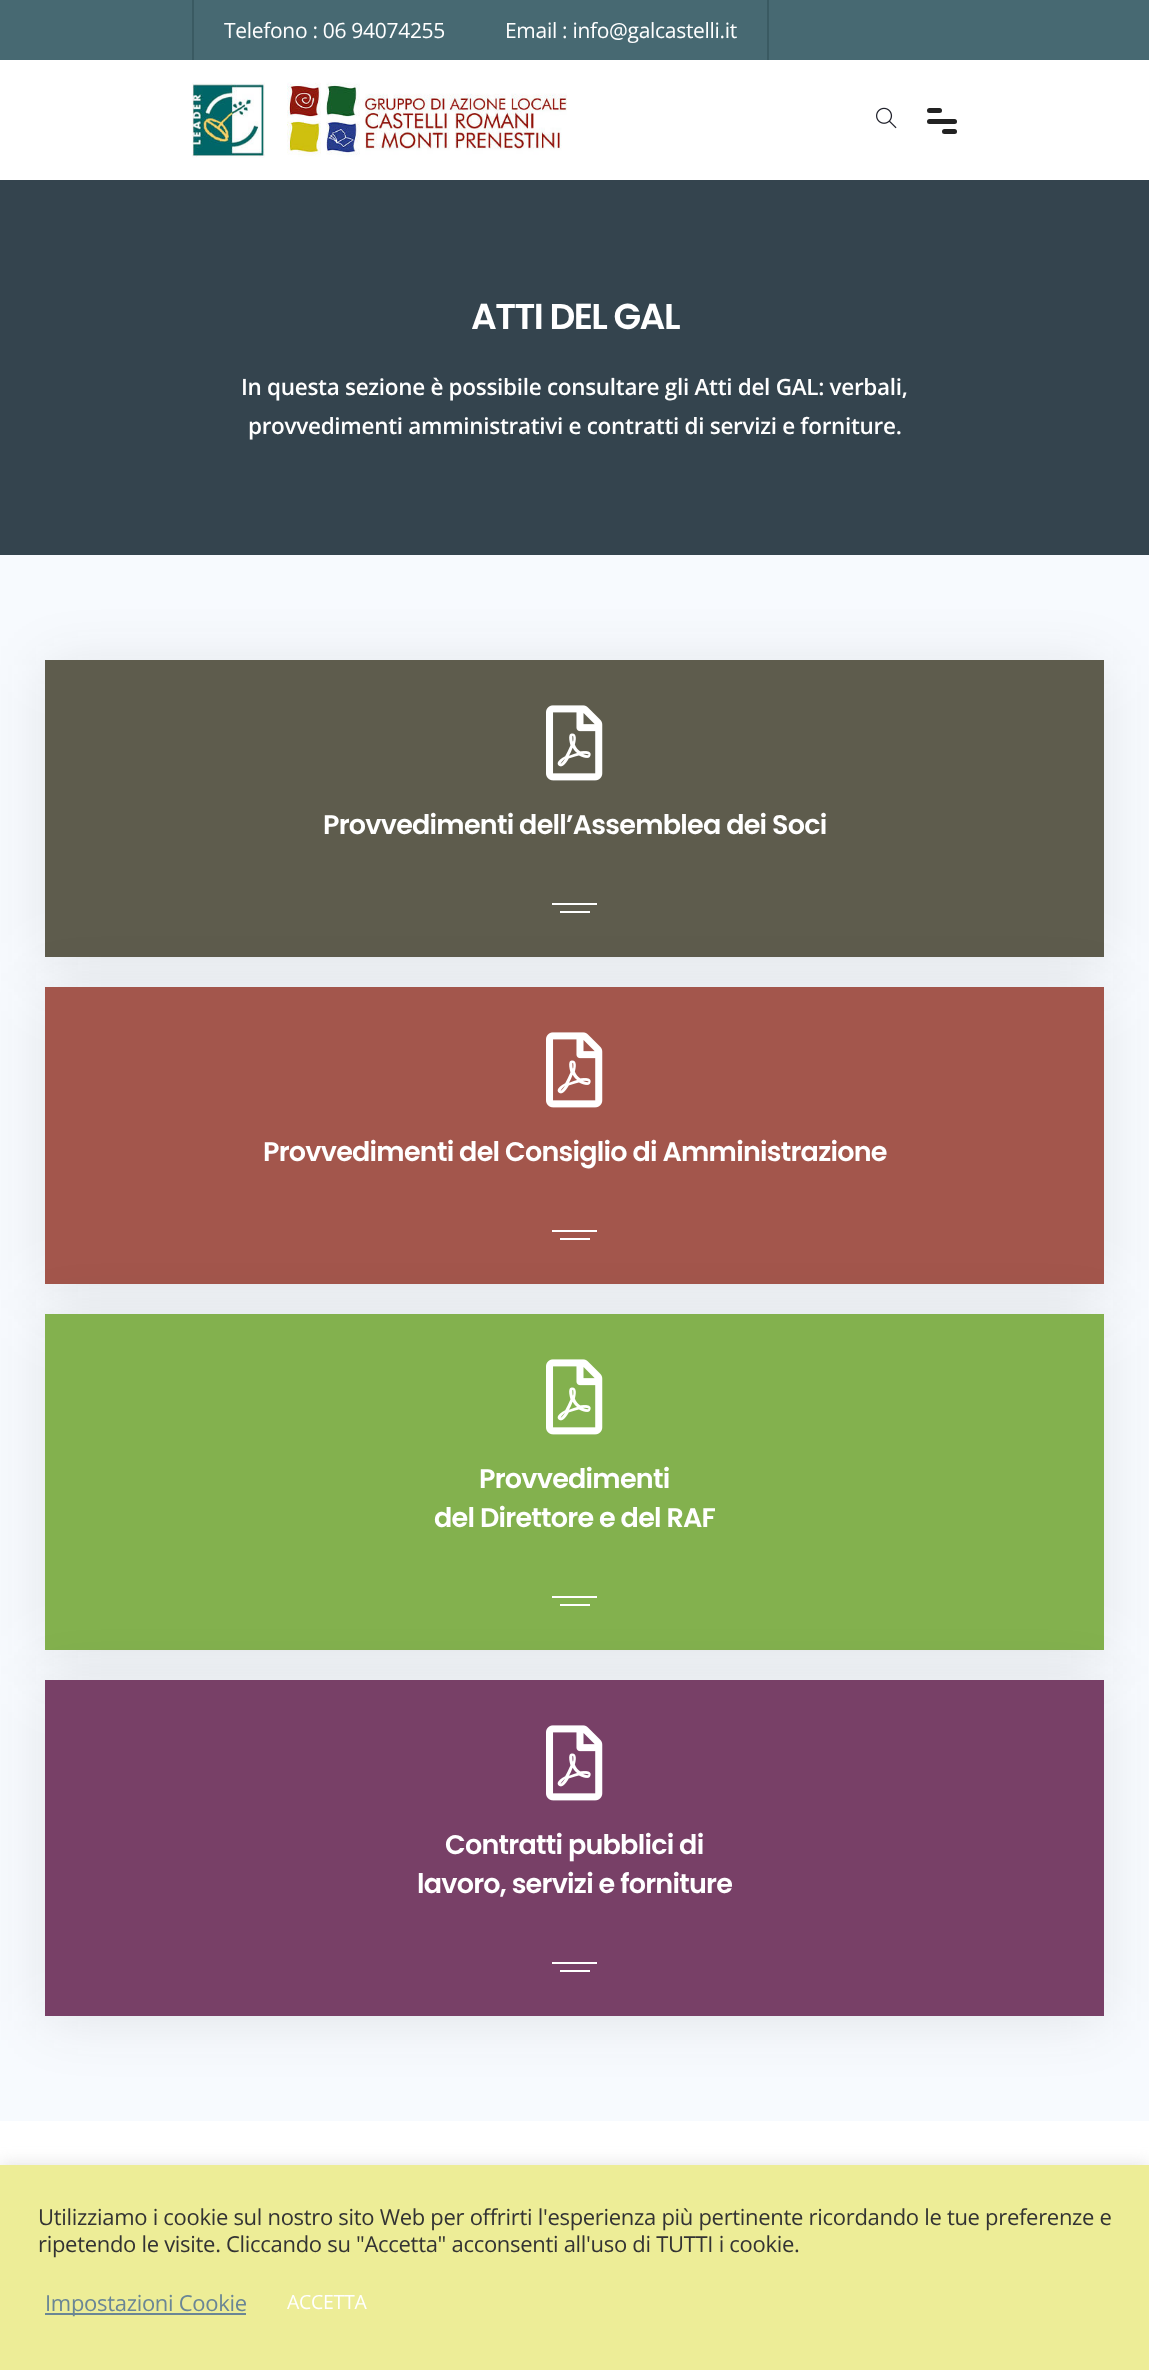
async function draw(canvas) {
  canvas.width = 1149;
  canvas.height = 2370;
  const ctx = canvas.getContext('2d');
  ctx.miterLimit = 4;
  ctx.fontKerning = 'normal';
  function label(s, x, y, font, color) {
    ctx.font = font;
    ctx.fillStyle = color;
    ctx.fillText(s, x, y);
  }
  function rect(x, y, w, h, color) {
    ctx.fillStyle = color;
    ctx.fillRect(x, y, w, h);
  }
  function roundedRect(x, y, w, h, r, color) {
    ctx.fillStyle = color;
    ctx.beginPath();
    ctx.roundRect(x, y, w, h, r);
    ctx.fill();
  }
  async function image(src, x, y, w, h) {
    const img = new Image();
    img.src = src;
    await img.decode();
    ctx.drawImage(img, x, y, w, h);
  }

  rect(0, 0, 1149, 2370, '#fff');
  rect(0, 0, 1149, 60, '#476972');
  rect(192, 0, 2, 60, '#3a5a62');
  ctx.letterSpacing = '-0.3px';
  label('Telefono : 06 94074255', 224, 38, '21px Open Sans', '#fff');
  rect(767, 0, 2, 60, '#3a5a62');
  label('Email : info@galcastelli.it', 505, 38, '21px Open Sans', '#fff');
  await image('assets/img1.png', 192, 82, 375, 76);
  await image('assets/img2.png', 876, 107, 21, 22);
  roundedRect(927, 108, 15, 5, 2.5, '#222');
  roundedRect(927, 119, 30, 5, 2.5, '#222');
  roundedRect(942, 129, 15, 5, 2.5, '#222');
  rect(0, 180, 1149, 375, '#34444e');
  ctx.letterSpacing = '-1.5px';
  label('ATTI DEL GAL', 471, 329, '600 36px Poppins', '#fff');
  ctx.letterSpacing = '-0.3px';
  label('In questa sezione è possibile consultare gli Atti del GAL: verbali,', 241, 395, '600 22.5px Open Sans', '#fff');
  label('provvedimenti amministrativi e contratti di servizi e forniture.', 248, 434, '600 22.5px Open Sans', '#fff');
  rect(0, 555, 1149, 1566, '#f7fafe');
  ctx.fillStyle = '#2424241a';
  ctx.filter = 'blur(29.5px)';
  ctx.beginPath();
  ctx.rect(45, 665, 1059, 297);
  ctx.fill();
  ctx.filter = 'none';
  rect(45, 660, 1059, 297, '#5e5c4d');
  await image('assets/img3.png', 546, 705, 57, 76);
  ctx.letterSpacing = '-0.75px';
  label('Provvedimenti dell’Assemblea dei Soci', 323, 834, '600 27px Poppins', '#fff');
  rect(552, 903, 45, 2, '#fff');
  rect(560, 911, 30, 2, '#fff');
  ctx.fillStyle = '#2424241a';
  ctx.filter = 'blur(29.5px)';
  ctx.beginPath();
  ctx.rect(45, 992, 1059, 297);
  ctx.fill();
  ctx.filter = 'none';
  rect(45, 987, 1059, 297, '#a3564c');
  await image('assets/img4.png', 546, 1032, 57, 76);
  label('Provvedimenti del Consiglio di Amministrazione', 263, 1161, '600 27px Poppins', '#fff');
  rect(552, 1230, 45, 2, '#fff');
  rect(560, 1238, 30, 2, '#fff');
  ctx.fillStyle = '#2424241a';
  ctx.filter = 'blur(29.5px)';
  ctx.beginPath();
  ctx.rect(45, 1319, 1059, 336);
  ctx.fill();
  ctx.filter = 'none';
  rect(45, 1314, 1059, 336, '#83b14e');
  await image('assets/img5.png', 546, 1359, 57, 76);
  label('Provvedimenti', 479, 1488, '600 27px Poppins', '#fff');
  label('del Direttore e del RAF', 434, 1527, '600 27px Poppins', '#fff');
  rect(552, 1596, 45, 2, '#fff');
  rect(560, 1604, 30, 2, '#fff');
  ctx.fillStyle = '#2424241a';
  ctx.filter = 'blur(29.5px)';
  ctx.beginPath();
  ctx.rect(45, 1685, 1059, 336);
  ctx.fill();
  ctx.filter = 'none';
  rect(45, 1680, 1059, 336, '#784067');
  await image('assets/img6.png', 546, 1725, 57, 76);
  label('Contratti pubblici di', 445, 1854, '600 27px Poppins', '#fff');
  label('lavoro, servizi e forniture', 417, 1893, '600 27px Poppins', '#fff');
  rect(552, 1962, 45, 2, '#fff');
  rect(560, 1970, 30, 2, '#fff');
  ctx.fillStyle = '#acabab4d';
  ctx.filter = 'blur(7.5px)';
  ctx.beginPath();
  ctx.rect(0, 2163, 1149, 206);
  ctx.fill();
  ctx.filter = 'none';
  rect(0, 2165, 1149, 205, '#eded97');
  ctx.letterSpacing = '-0.3px';
  label('Utilizziamo i cookie sul nostro sito Web per offrirti l\'esperienza più pertinente ricordando le tue preferenze e', 38, 2225, '22px Open Sans', '#333');
  label('ripetendo le visite. Cliccando su "Accetta" acconsenti all\'uso di TUTTI i cookie.', 38, 2252, '22px Open Sans', '#333');
  rect(45, 2313, 201, 2, '#6a8695');
  label('Impostazioni Cookie', 45, 2311, '22px Open Sans', '#6a8695');
  label('ACCETTA', 287, 2309, '19.5px Open Sans', '#fff');
}

draw(document.querySelector('canvas'));
